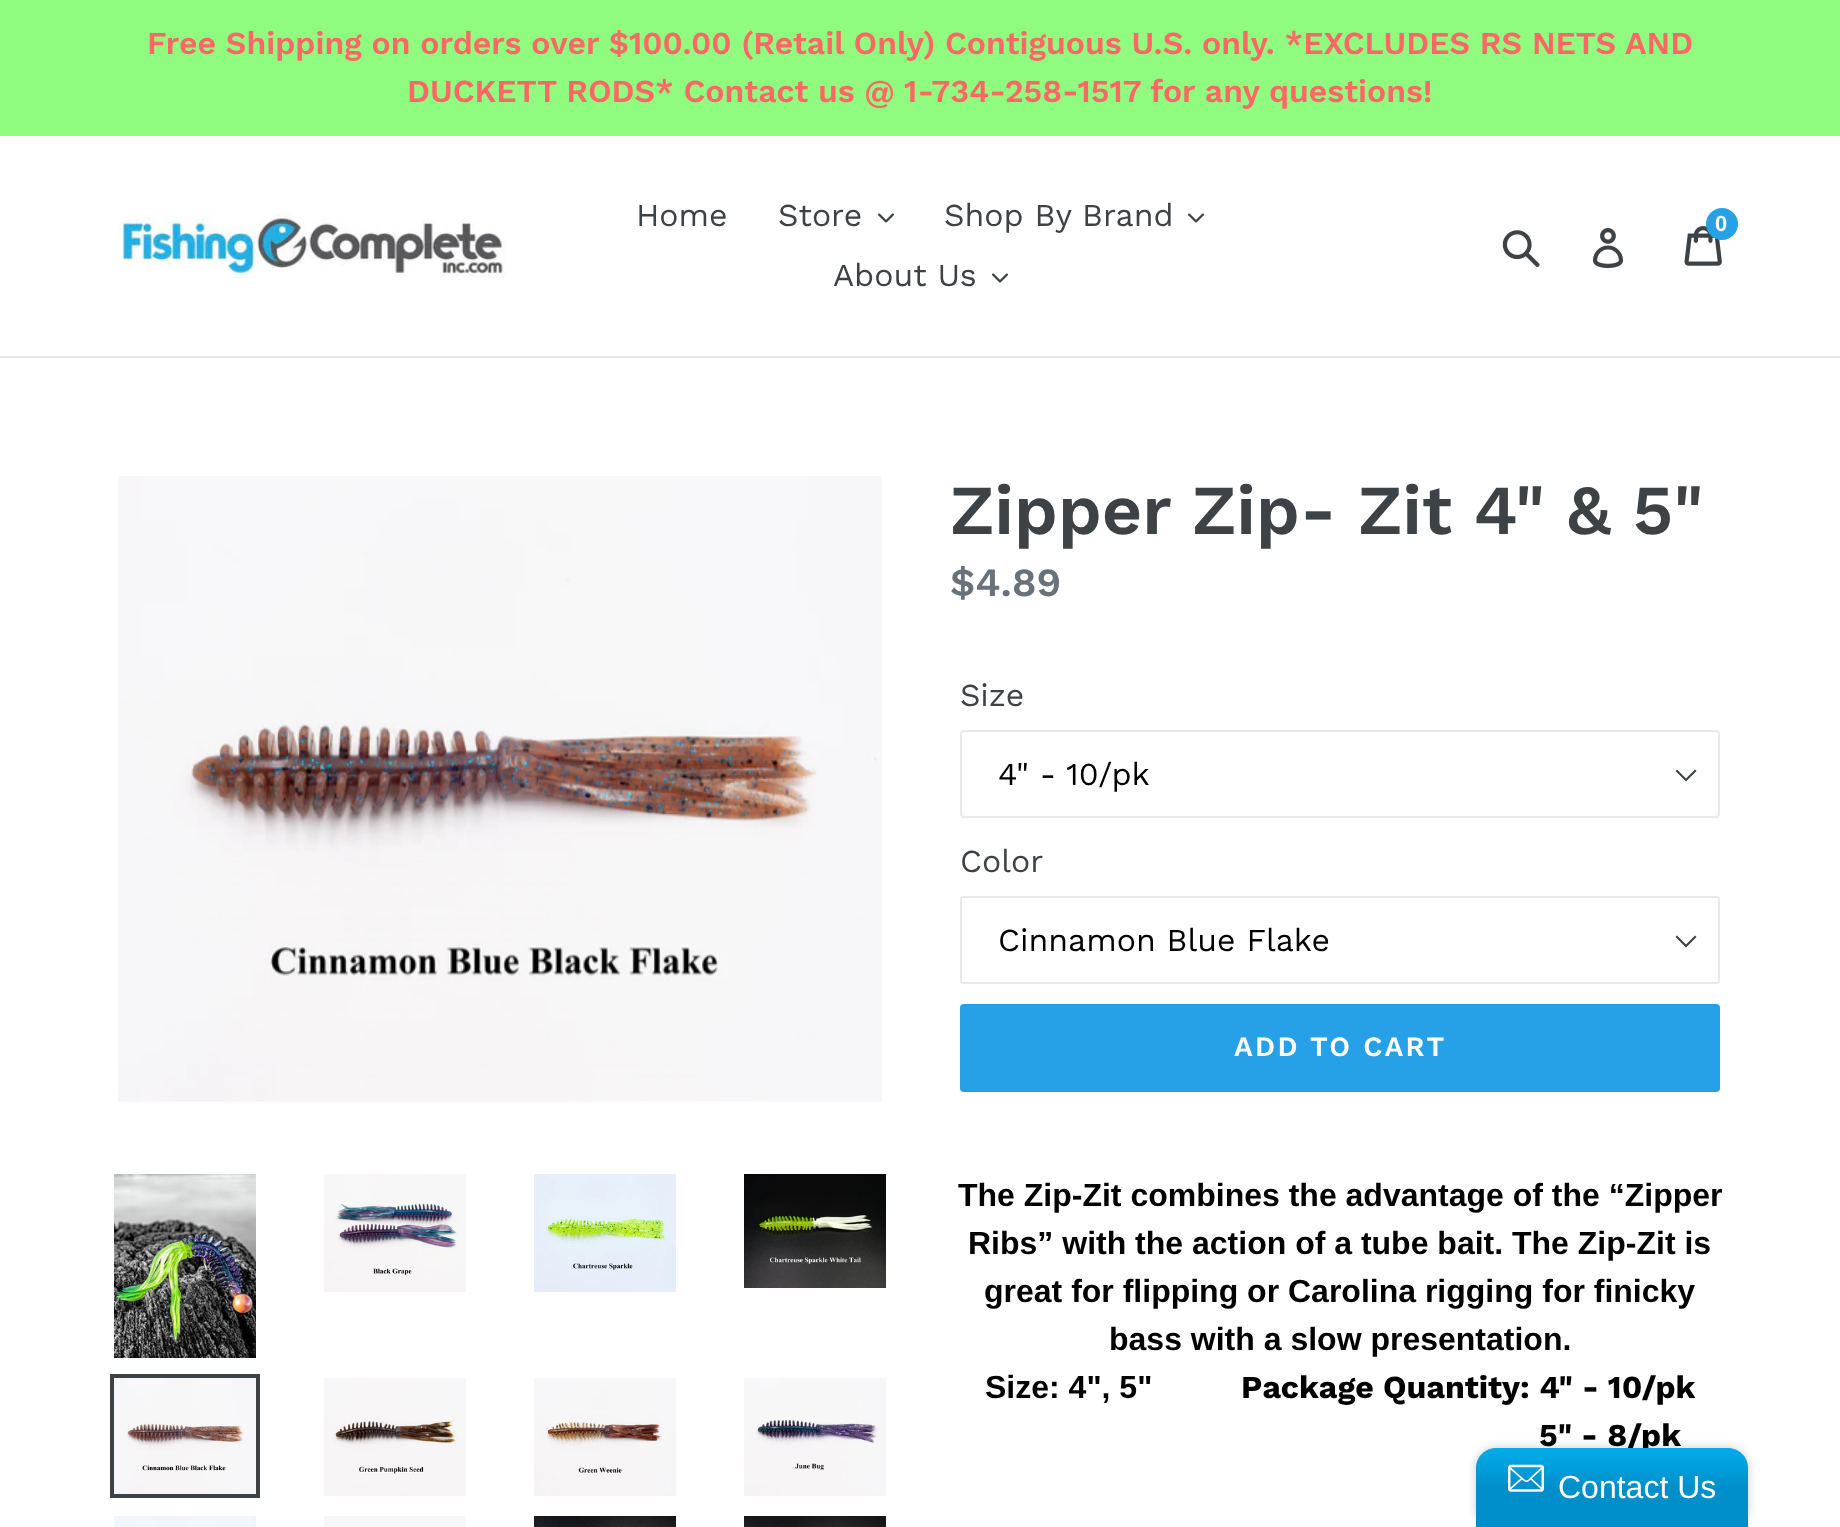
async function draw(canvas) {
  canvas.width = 1840;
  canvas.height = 1527;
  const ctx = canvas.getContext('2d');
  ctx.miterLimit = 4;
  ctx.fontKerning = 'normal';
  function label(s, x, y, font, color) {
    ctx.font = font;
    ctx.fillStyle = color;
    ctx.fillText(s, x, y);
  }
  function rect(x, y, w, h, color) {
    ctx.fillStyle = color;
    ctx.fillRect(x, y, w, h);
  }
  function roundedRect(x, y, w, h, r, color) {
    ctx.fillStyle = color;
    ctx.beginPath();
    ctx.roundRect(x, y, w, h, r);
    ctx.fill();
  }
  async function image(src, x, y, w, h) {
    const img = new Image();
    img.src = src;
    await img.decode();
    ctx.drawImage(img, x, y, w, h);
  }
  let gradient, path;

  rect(0, 0, 1840, 1527, '#fff');
  rect(0, 0, 1840, 136, '#90fc7f');
  label('Free Shipping on orders over $100.00 (Retail Only) Contiguous U.S. only. *EXCLUDES RS NETS AND', 147, 54, '600 32px Work Sans', '#f66');
  label('DUCKETT RODS* Contact us @ 1-734-258-1517 for any questions!', 407, 102, '600 32px Work Sans', '#f66');
  rect(0, 356, 1840, 2, '#e8e9eb');
  await image('assets/img1.png', 121, 213, 386, 65);
  label('Home', 636, 226, '32px Work Sans', '#3d4246');
  label('Store', 778, 226, '32px Work Sans', '#3d4246');
  await image('assets/img2.png', 878, 213, 16, 10);
  label('Shop By Brand', 944, 226, '32px Work Sans', '#3d4246');
  await image('assets/img2.png', 1188, 213, 16, 10);
  label('About Us', 833, 286, '32px Work Sans', '#3d4246');
  await image('assets/img2.png', 992, 273, 16, 10);
  await image('assets/img3.png', 1684, 226, 38, 40);
  ctx.fillStyle = '#26a0e7';
  ctx.beginPath();
  ctx.arc(1722, 224, 16, 0, 2 * Math.PI);
  ctx.fill();
  label('0', 1715, 231, 'bold 22px Liberation Sans', '#fff');
  await image('assets/img4.png', 1502, 230, 38, 37);
  await image('assets/img5.png', 1593, 228, 31, 40);
  await image('assets/img6.png', 118, 476, 764, 626);
  await image('assets/img7.png', 114, 1174, 142, 184);
  await image('assets/img8.png', 324, 1174, 142, 118);
  await image('assets/img9.png', 534, 1174, 142, 118);
  await image('assets/img10.png', 744, 1174, 142, 114);
  ctx.strokeStyle = '#3d4246';
  ctx.lineWidth = 4;
  ctx.strokeRect(112, 1376, 146, 120);
  await image('assets/img11.png', 114, 1378, 142, 116);
  await image('assets/img12.png', 324, 1378, 142, 118);
  await image('assets/img13.png', 534, 1378, 142, 118);
  await image('assets/img14.png', 744, 1378, 142, 118);
  await image('assets/img15.png', 114, 1516, 142, 11);
  rect(324, 1516, 142, 11, '#f7f6f9');
  await image('assets/img16.png', 534, 1516, 142, 11);
  await image('assets/img17.png', 744, 1516, 142, 11);
  label('Zipper Zip- Zit 4" & 5"', 950, 534, '600 70px Work Sans', '#3d4246');
  label('$4.89', 950, 596, '600 40px Work Sans', '#69727b');
  label('Size', 960, 706, '32px Work Sans', '#3d4246');
  path = new Path2D('M1686 781.5L1675.5 771L1677 769.5L1686 778.5L1695 769.5L1696.5 771Z');
  ctx.fill(path);
  ctx.beginPath();
  ctx.roundRect(961, 731, 758, 86, 3);
  ctx.strokeStyle = '#e8e9eb';
  ctx.lineWidth = 2;
  ctx.stroke();
  label('4" - 10/pk', 998, 785, '32px Work Sans', '#000');
  label('Color', 960, 872, '32px Work Sans', '#3d4246');
  path = new Path2D('M1686 947.5L1675.5 937L1677 935.5L1686 944.5L1695 935.5L1696.5 937Z');
  ctx.fill(path);
  ctx.beginPath();
  ctx.roundRect(961, 897, 758, 86, 3);
  ctx.stroke();
  label('Cinnamon Blue Flake', 998, 951, '32px Work Sans', '#000');
  roundedRect(960, 1004, 760, 88, 4, '#26a0e7');
  ctx.letterSpacing = '2.25px';
  label('ADD TO CART', 1234, 1056, '600 28px Work Sans', '#fff');
  ctx.letterSpacing = '0px';
  label('The Zip-Zit combines the advantage of the “Zipper', 958, 1206, 'bold 32px Liberation Sans', '#000');
  label('Ribs” with the action of a tube bait. The Zip-Zit is', 968, 1254, 'bold 32px Liberation Sans', '#000');
  label('great for flipping or Carolina rigging for finicky', 984, 1302, 'bold 32px Liberation Sans', '#000');
  label('bass with a slow presentation.', 1109, 1350, 'bold 32px Liberation Sans', '#000');
  label('Size: 4", 5"', 985, 1398, 'bold 32px Liberation Sans', '#000');
  label('Package Quantity: 4" - 10/pk', 1241, 1398, 'bold 32px Work Sans', '#000');
  label('5" - 8/pk', 1539, 1446, 'bold 32px Work Sans', '#000');
  ctx.fillStyle = '#00000033';
  ctx.filter = 'blur(5px)';
  ctx.beginPath();
  ctx.roundRect(1476, 1448, 272, 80, 20);
  ctx.fill();
  ctx.filter = 'none';
  gradient = ctx.createLinearGradient(1612, 1448, 1612, 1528);
  gradient.addColorStop(0, '#00ade9');
  gradient.addColorStop(0.5, '#008fcb');
  ctx.fillStyle = gradient;
  path = new Path2D('M1496 1448H1728C1739 1448 1748 1457 1748 1468V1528H1476V1468C1476 1457 1485 1448 1496 1448Z');
  ctx.fill(path);
  await image('assets/img18.png', 1508, 1464, 36, 28);
  label('Contact Us', 1558, 1498, '32px Liberation Sans', '#fff');
}

draw(document.querySelector('canvas'));
